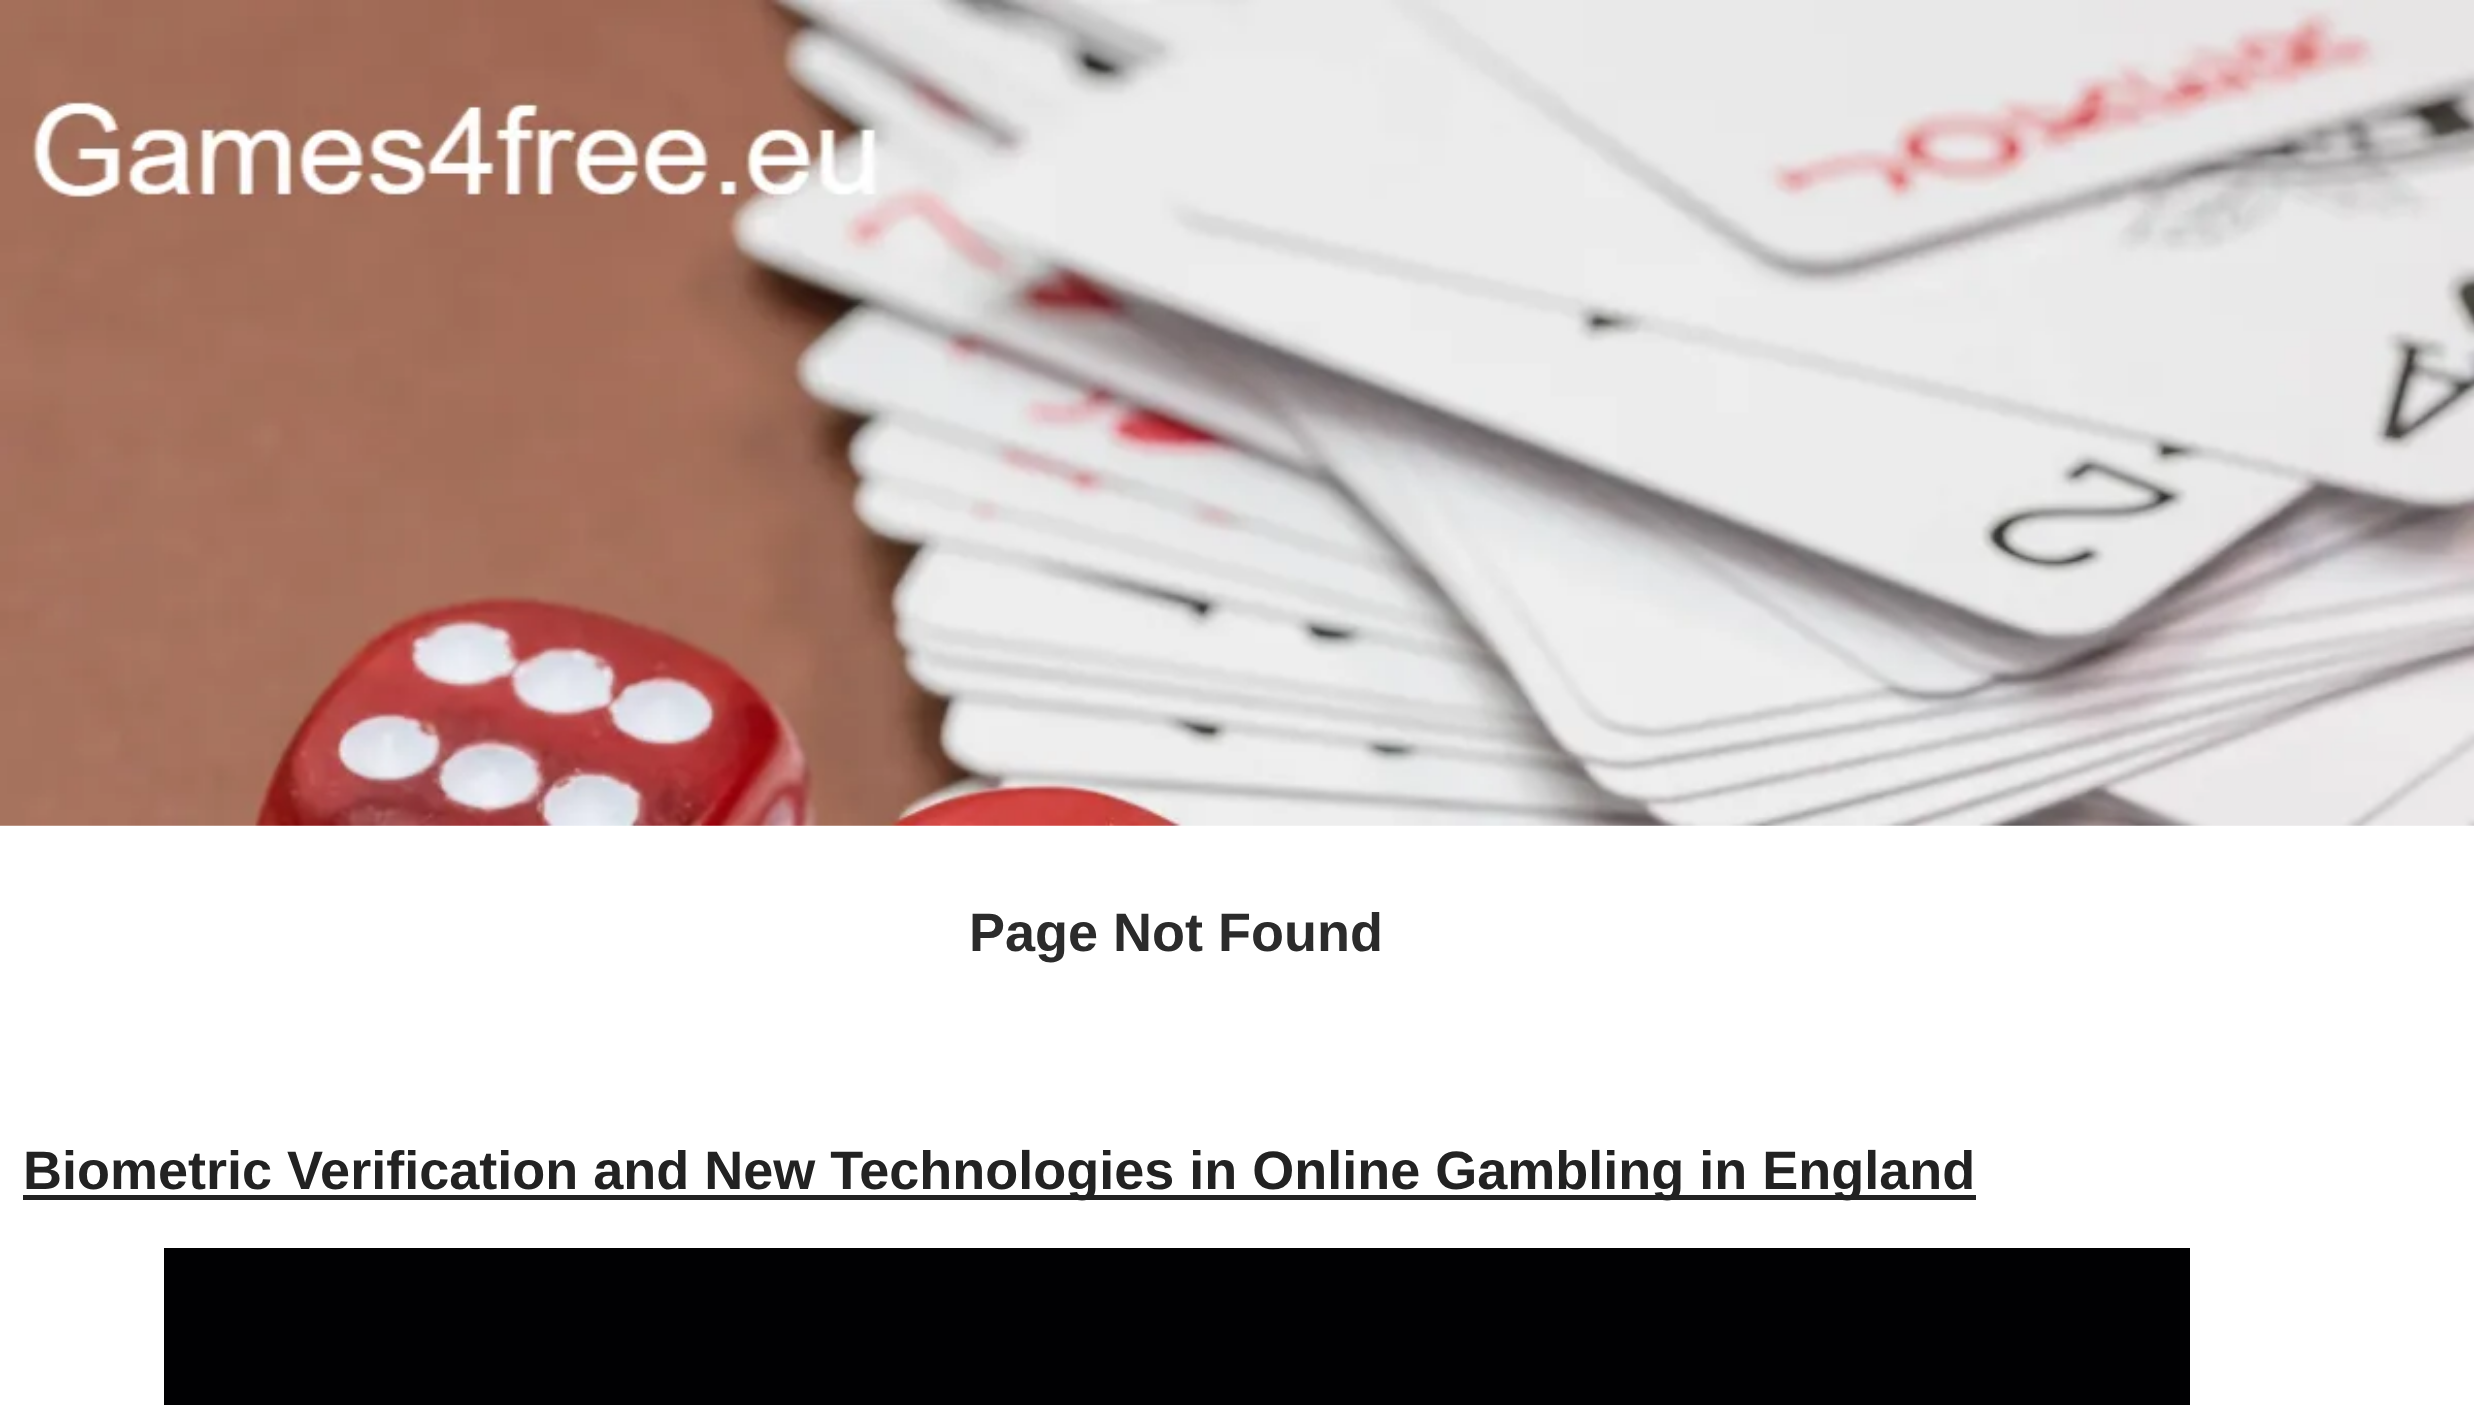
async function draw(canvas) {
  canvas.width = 2474;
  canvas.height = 1405;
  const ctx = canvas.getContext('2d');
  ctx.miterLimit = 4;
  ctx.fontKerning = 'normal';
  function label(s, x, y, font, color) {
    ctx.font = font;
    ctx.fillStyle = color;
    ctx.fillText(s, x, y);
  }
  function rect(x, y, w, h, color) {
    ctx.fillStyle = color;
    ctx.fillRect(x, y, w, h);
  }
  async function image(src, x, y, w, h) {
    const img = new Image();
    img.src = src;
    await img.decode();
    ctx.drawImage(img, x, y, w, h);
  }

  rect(0, 0, 2474, 1405, '#fff');
  await image('assets/img1.png', 0, 0, 2474, 826);
  label('Page Not Found', 969, 951, 'bold 54px Liberation Sans', '#2b2b2b');
  rect(23, 1195, 1953, 5, '#222');
  label('Biometric Verification and New Technologies in Online Gambling in England', 23, 1189, 'bold 54px Liberation Sans', '#222');
  rect(164, 1248, 2026, 157, '#010103');
}

draw(document.querySelector('canvas'));
